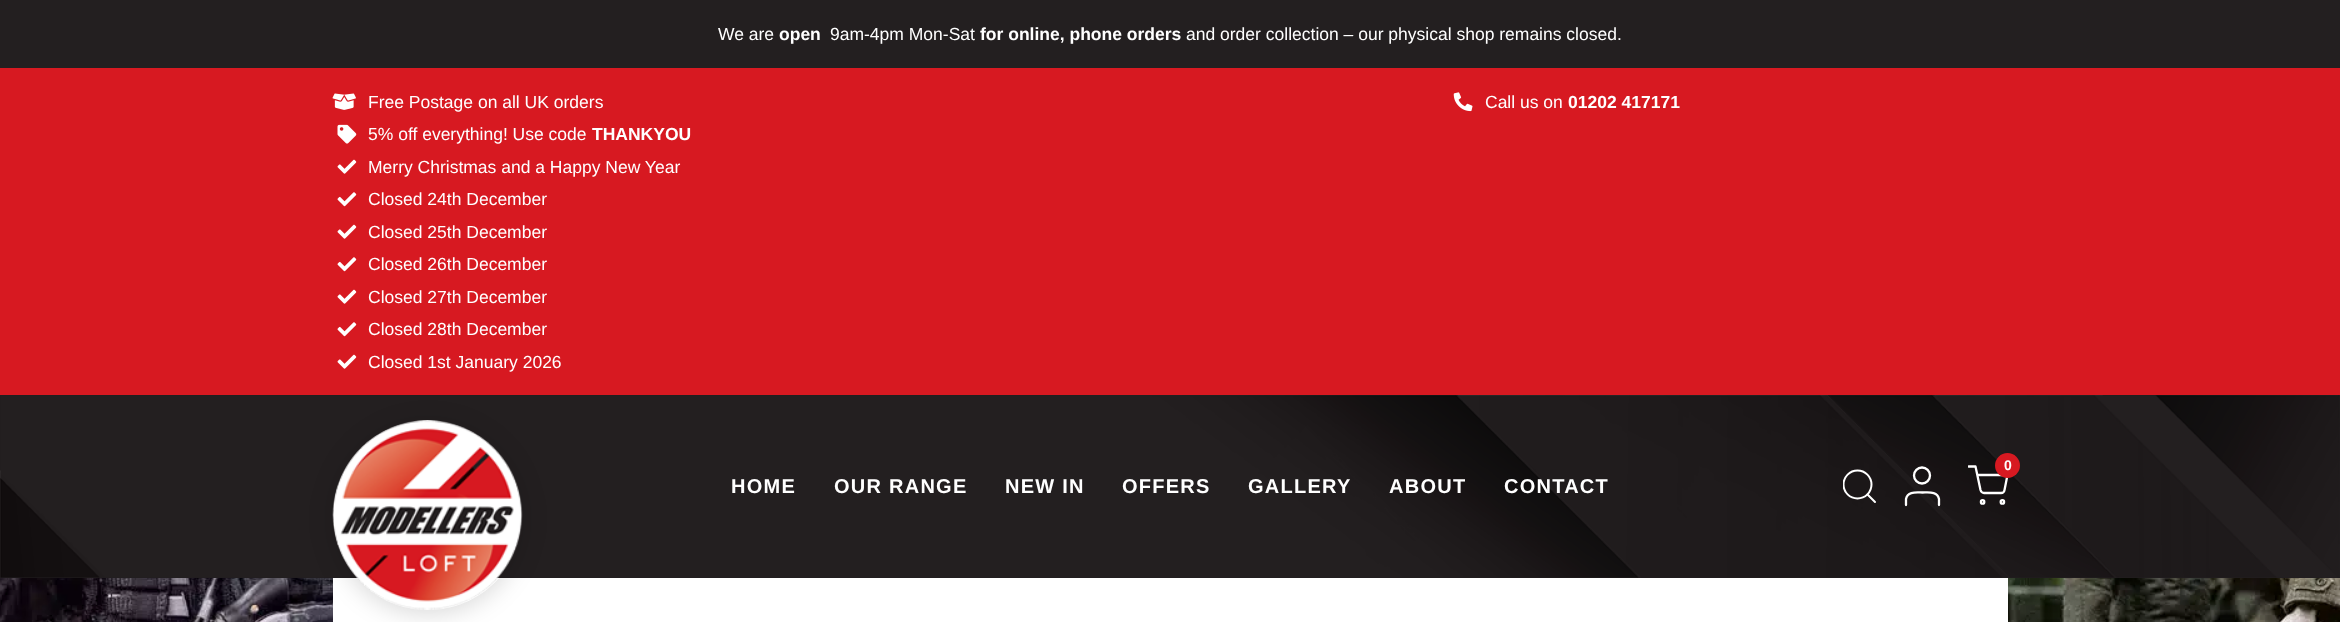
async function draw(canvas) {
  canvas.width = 2340;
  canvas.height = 622;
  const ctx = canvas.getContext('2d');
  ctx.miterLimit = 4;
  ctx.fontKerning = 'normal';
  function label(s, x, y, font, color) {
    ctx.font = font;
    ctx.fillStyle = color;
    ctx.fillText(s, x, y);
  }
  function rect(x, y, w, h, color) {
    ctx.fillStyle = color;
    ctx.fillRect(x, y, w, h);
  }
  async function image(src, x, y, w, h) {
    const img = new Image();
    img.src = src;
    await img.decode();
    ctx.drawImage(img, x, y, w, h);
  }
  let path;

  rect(0, 0, 2340, 622, '#231f20');
  await image('assets/img1.png', 0, 578, 2340, 44);
  label('We are', 718, 40, '17.5px Liberation Sans', '#fff');
  label('open', 779, 40, 'bold 17.5px Liberation Sans', '#fff');
  label('9am-4pm Mon-Sat', 830, 40, '17.5px Liberation Sans', '#fff');
  label('for online, phone orders', 980, 40, 'bold 17.5px Liberation Sans', '#fff');
  label('and order collection – our physical shop remains closed.', 1186, 40, '17.5px Liberation Sans', '#fff');
  rect(0, 68, 2340, 327, '#d71921');
  await image('assets/img2.png', 332, 93, 24, 17);
  label('Free Postage on all UK orders', 368, 108, '17.5px Liberation Sans', '#fff');
  await image('assets/img3.png', 337, 124, 20, 20);
  label('5% off everything! Use code', 368, 140, '17.5px Liberation Sans', '#fff');
  label('THANKYOU', 592, 140, 'bold 17.5px Liberation Sans', '#fff');
  await image('assets/img4.png', 337, 159, 20, 15);
  label('Merry Christmas and a Happy New Year', 368, 173, '17.5px Liberation Sans', '#fff');
  await image('assets/img5.png', 337, 192, 20, 15);
  label('Closed 24th December', 368, 205, '17.5px Liberation Sans', '#fff');
  await image('assets/img4.png', 337, 224, 20, 15);
  label('Closed 25th December', 368, 238, '17.5px Liberation Sans', '#fff');
  await image('assets/img5.png', 337, 257, 20, 15);
  label('Closed 26th December', 368, 270, '17.5px Liberation Sans', '#fff');
  await image('assets/img4.png', 337, 289, 20, 15);
  label('Closed 27th December', 368, 303, '17.5px Liberation Sans', '#fff');
  await image('assets/img5.png', 337, 322, 20, 15);
  label('Closed 28th December', 368, 335, '17.5px Liberation Sans', '#fff');
  await image('assets/img4.png', 337, 354, 20, 15);
  label('Closed 1st January 2026', 368, 368, '17.5px Liberation Sans', '#fff');
  await image('assets/img6.png', 1453, 92, 20, 20);
  label('Call us on', 1485, 108, '17.5px Liberation Sans', '#fff');
  label('01202 417171', 1568, 108, 'bold 17.5px Liberation Sans', '#fff');
  await image('assets/img7.png', 0, 395, 2340, 183);
  rect(333, 578, 1675, 44, '#fff');
  ctx.save();
  path = new Path2D('M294 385H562V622H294ZM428 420C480.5 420 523 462.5 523 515C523 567.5 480.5 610 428 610C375.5 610 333 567.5 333 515C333 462.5 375.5 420 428 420Z');
  ctx.clip(path, 'evenodd');
  ctx.fillStyle = '#00000026';
  ctx.filter = 'blur(12.5px)';
  ctx.beginPath();
  ctx.roundRect(333, 424, 190, 190, 95);
  ctx.fill();
  ctx.filter = 'none';
  ctx.restore();
  await image('assets/img8.png', 332, 420, 191, 190);
  ctx.save();
  ctx.beginPath();
  ctx.rect(1843, 469, 35, 35);
  ctx.clip();
  ctx.beginPath();
  ctx.arc(1857.5, 484.5, 14, 0, 2 * Math.PI);
  ctx.strokeStyle = '#fff';
  ctx.lineWidth = 2;
  ctx.stroke();
  ctx.restore();
  path = new Path2D('M1875 502L1867.5 494.5');
  ctx.strokeStyle = '#fff';
  ctx.lineWidth = 2;
  ctx.lineCap = 'round';
  ctx.lineJoin = 'round';
  ctx.stroke(path);
  path = new Path2D('M1939 505V499C1937.5 491 1928.5 492.5 1922.5 492.5C1916.5 492.5 1907.5 491 1906 499V505');
  ctx.lineWidth = 2.3;
  ctx.stroke(path);
  ctx.beginPath();
  ctx.arc(1922, 475.5, 8, 0, 2 * Math.PI);
  ctx.stroke();
  ctx.beginPath();
  ctx.arc(1982.6, 501.9, 1.7, 0, 2 * Math.PI);
  ctx.stroke();
  ctx.beginPath();
  ctx.arc(2002.4, 501.9, 1.7, 0, 2 * Math.PI);
  ctx.stroke();
  ctx.save();
  ctx.beginPath();
  ctx.rect(1968, 465, 40, 40);
  ctx.clip();
  path = new Path2D('M1968.5 466.5H1975.5L1980.5 490C1981 491.5 1982.5 493 1984 493H2001C2003 493 2004.5 491.5 2004.5 490L2007.5 475H1977.5');
  ctx.stroke(path);
  ctx.restore();
  ctx.fillStyle = '#d71921';
  ctx.beginPath();
  ctx.arc(2007.5, 465.5, 12.5, 0, 2 * Math.PI);
  ctx.fill();
  label('0', 2004, 470, 'bold 14px Liberation Sans', '#fff');
  ctx.letterSpacing = '1.25px';
  label('HOME', 731, 493, 'bold 20px Liberation Sans', '#fff');
  label('OUR RANGE', 834, 493, 'bold 20px Liberation Sans', '#fff');
  label('NEW IN', 1005, 493, 'bold 20px Liberation Sans', '#fff');
  label('OFFERS', 1122, 493, 'bold 20px Liberation Sans', '#fff');
  label('GALLERY', 1248, 493, 'bold 20px Liberation Sans', '#fff');
  label('ABOUT', 1389, 493, 'bold 20px Liberation Sans', '#fff');
  label('CONTACT', 1504, 493, 'bold 20px Liberation Sans', '#fff');
}

draw(document.querySelector('canvas'));
